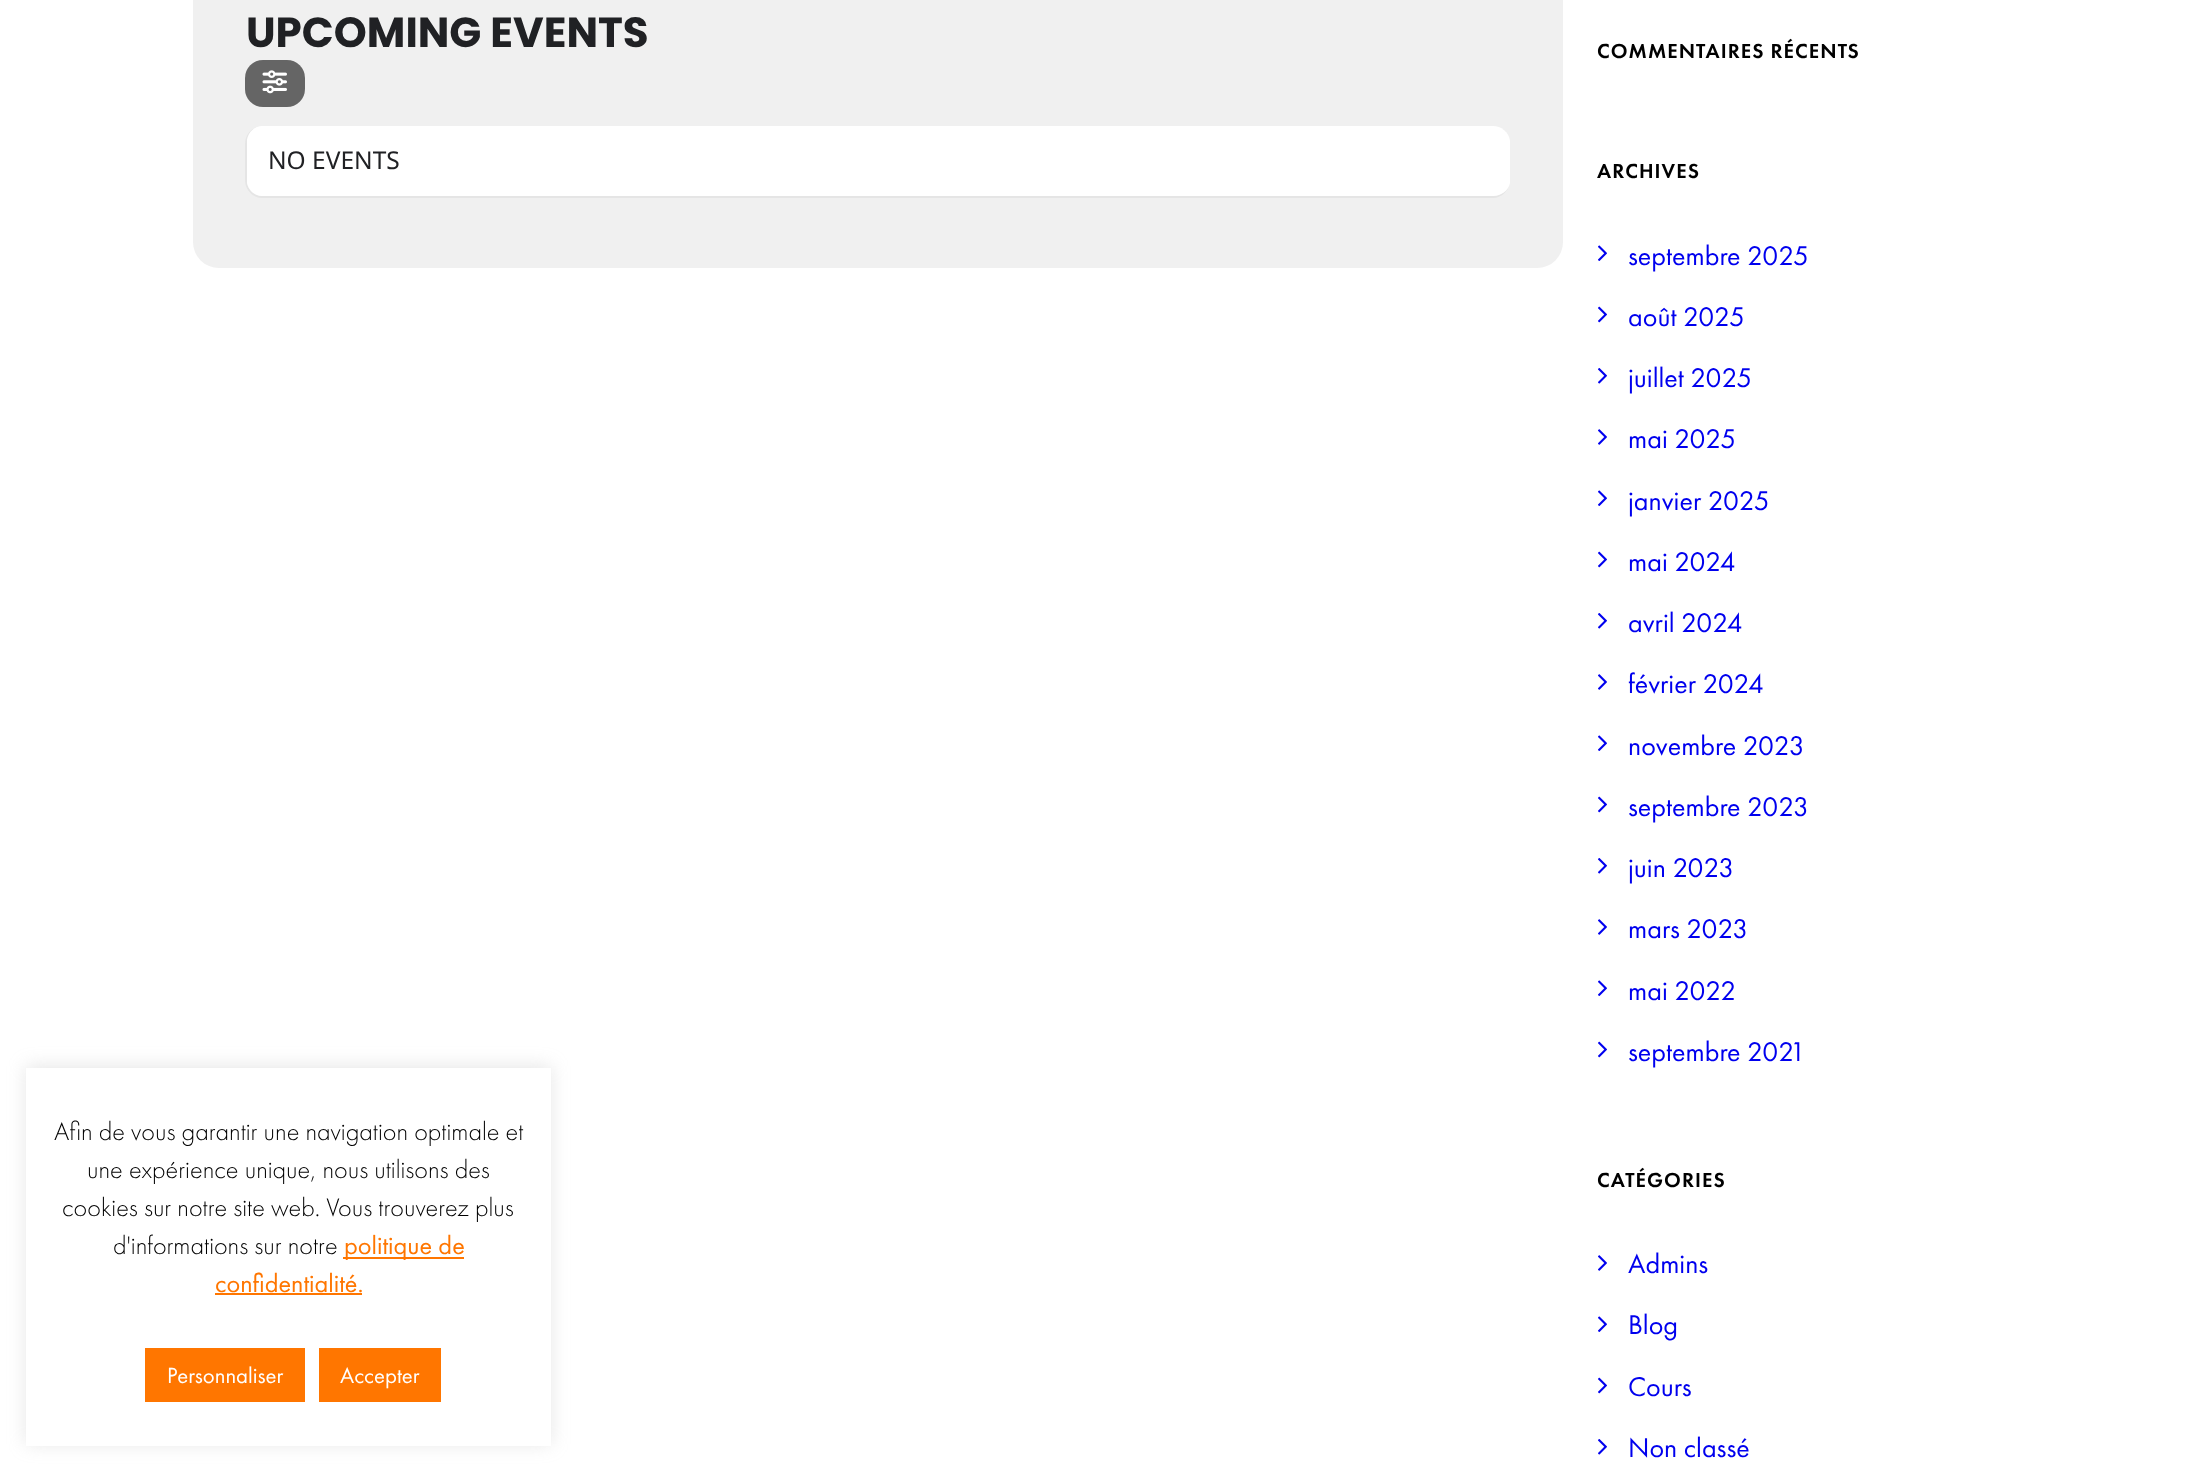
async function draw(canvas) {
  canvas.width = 2196;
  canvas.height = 1471;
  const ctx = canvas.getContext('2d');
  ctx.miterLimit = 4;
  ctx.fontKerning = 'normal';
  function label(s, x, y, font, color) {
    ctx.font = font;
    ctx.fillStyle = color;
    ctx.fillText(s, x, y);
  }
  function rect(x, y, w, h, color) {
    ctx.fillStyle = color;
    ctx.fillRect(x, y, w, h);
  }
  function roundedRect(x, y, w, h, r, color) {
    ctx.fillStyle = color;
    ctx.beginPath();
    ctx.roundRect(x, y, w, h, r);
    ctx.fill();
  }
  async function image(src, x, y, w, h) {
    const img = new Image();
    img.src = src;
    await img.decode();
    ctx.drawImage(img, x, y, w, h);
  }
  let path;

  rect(0, 0, 2196, 1471, '#fff');
  roundedRect(193, -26, 1370, 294, 26, '#f0f0f0');
  label('UPCOMING EVENTS', 246, 47, 'bold 42px Poppins', '#202124');
  roundedRect(245, 60, 60, 47, 18, '#656565');
  await image('assets/img1.png', 262, 70, 25, 24);
  ctx.fillStyle = '#e5e5e5';
  path = new Path2D('M262 126H1493C1502 126 1510 134 1510 144V180C1510 190 1502 198 1493 198H262C253 198 245 190 245 180V144C245 134 253 126 262 126ZM262 126H1493C1502 126 1510 134 1510 144V180C1510 189 1502 196 1493 196H262C254 196 247 189 247 180V144C247 134 254 126 262 126Z');
  ctx.fill(path, 'evenodd');
  ctx.fillStyle = '#fff';
  path = new Path2D('M262 126C255 126 248 132 247 140V183C248 190 255 196 262 196H1493C1501 196 1509 190 1510 183V141C1509 132 1501 126 1493 126Z');
  ctx.fill(path);
  label('NO EVENTS', 268, 169, '24.5px Noto Sans', '#202124');
  ctx.letterSpacing = '1.05px';
  label('COMMENTAIRES RÉCENTS', 1597, 58, '500 21px Futura PT', '#000');
  label('ARCHIVES', 1597, 178, '500 21px Futura PT', '#000');
  await image('assets/img2.png', 1598, 245, 9, 16);
  ctx.letterSpacing = '0px';
  label('septembre 2025', 1628, 265, '28px Futura PT', '#00e');
  await image('assets/img3.png', 1598, 306, 9, 17);
  label('août 2025', 1628, 326, '28px Futura PT', '#00e');
  await image('assets/img4.png', 1598, 368, 9, 16);
  label('juillet 2025', 1628, 387, '28px Futura PT', '#00e');
  await image('assets/img5.png', 1598, 429, 9, 16);
  label('mai 2025', 1628, 448, '28px Futura PT', '#00e');
  await image('assets/img2.png', 1598, 490, 9, 16);
  label('janvier 2025', 1628, 510, '28px Futura PT', '#00e');
  await image('assets/img3.png', 1598, 551, 9, 17);
  label('mai 2024', 1628, 571, '28px Futura PT', '#00e');
  await image('assets/img4.png', 1598, 613, 9, 16);
  label('avril 2024', 1628, 632, '28px Futura PT', '#00e');
  await image('assets/img5.png', 1598, 674, 9, 16);
  label('février 2024', 1628, 693, '28px Futura PT', '#00e');
  await image('assets/img2.png', 1598, 735, 9, 16);
  label('novembre 2023', 1628, 755, '28px Futura PT', '#00e');
  await image('assets/img3.png', 1598, 796, 9, 17);
  label('septembre 2023', 1628, 816, '28px Futura PT', '#00e');
  await image('assets/img4.png', 1598, 858, 9, 16);
  label('juin 2023', 1628, 877, '28px Futura PT', '#00e');
  await image('assets/img5.png', 1598, 919, 9, 16);
  label('mars 2023', 1628, 938, '28px Futura PT', '#00e');
  await image('assets/img2.png', 1598, 980, 9, 16);
  label('mai 2022', 1628, 1000, '28px Futura PT', '#00e');
  await image('assets/img3.png', 1598, 1041, 9, 17);
  label('septembre 2021', 1628, 1061, '28px Futura PT', '#00e');
  ctx.letterSpacing = '1.05px';
  label('CATÉGORIES', 1597, 1187, '500 21px Futura PT', '#000');
  await image('assets/img5.png', 1598, 1255, 9, 16);
  ctx.letterSpacing = '0px';
  label('Admins', 1628, 1273, '28px Futura PT', '#00e');
  await image('assets/img2.png', 1598, 1316, 9, 16);
  label('Blog', 1628, 1334, '28px Futura PT', '#00e');
  await image('assets/img3.png', 1598, 1377, 9, 17);
  label('Cours', 1628, 1396, '28px Futura PT', '#00e');
  await image('assets/img4.png', 1598, 1439, 9, 16);
  label('Non classé', 1628, 1457, '28px Futura PT', '#00e');
  ctx.fillStyle = '#acabab4d';
  ctx.filter = 'blur(9px)';
  ctx.beginPath();
  ctx.rect(26, 1066, 525, 378);
  ctx.fill();
  ctx.filter = 'none';
  rect(26, 1068, 525, 378, '#fff');
  label('Afin de vous garantir une navigation optimale et', 54, 1140, '300 26.25px Futura PT', '#000');
  label('une expérience unique, nous utilisons des', 87, 1178, '300 26.25px Futura PT', '#000');
  label('cookies sur notre site web. Vous trouverez plus', 62, 1216, '300 26.25px Futura PT', '#000');
  label('d\'informations sur notre', 113, 1254, '300 26.25px Futura PT', '#000');
  rect(343, 1257, 121, 2, '#ff7600');
  label('politique de', 344, 1254, '26.25px Futura PT', '#ff7600');
  label('confidentialité.', 215, 1292, '26.25px Futura PT', '#ff7600');
  rect(215, 1293, 147, 2, '#ff7600');
  rect(145, 1348, 160, 54, '#ff7600');
  label('Personnaliser', 167, 1383, '22.75px Futura PT', '#fff');
  rect(319, 1348, 122, 54, '#ff7600');
  label('Accepter', 340, 1383, '22.75px Futura PT', '#fff');
}

draw(document.querySelector('canvas'));
